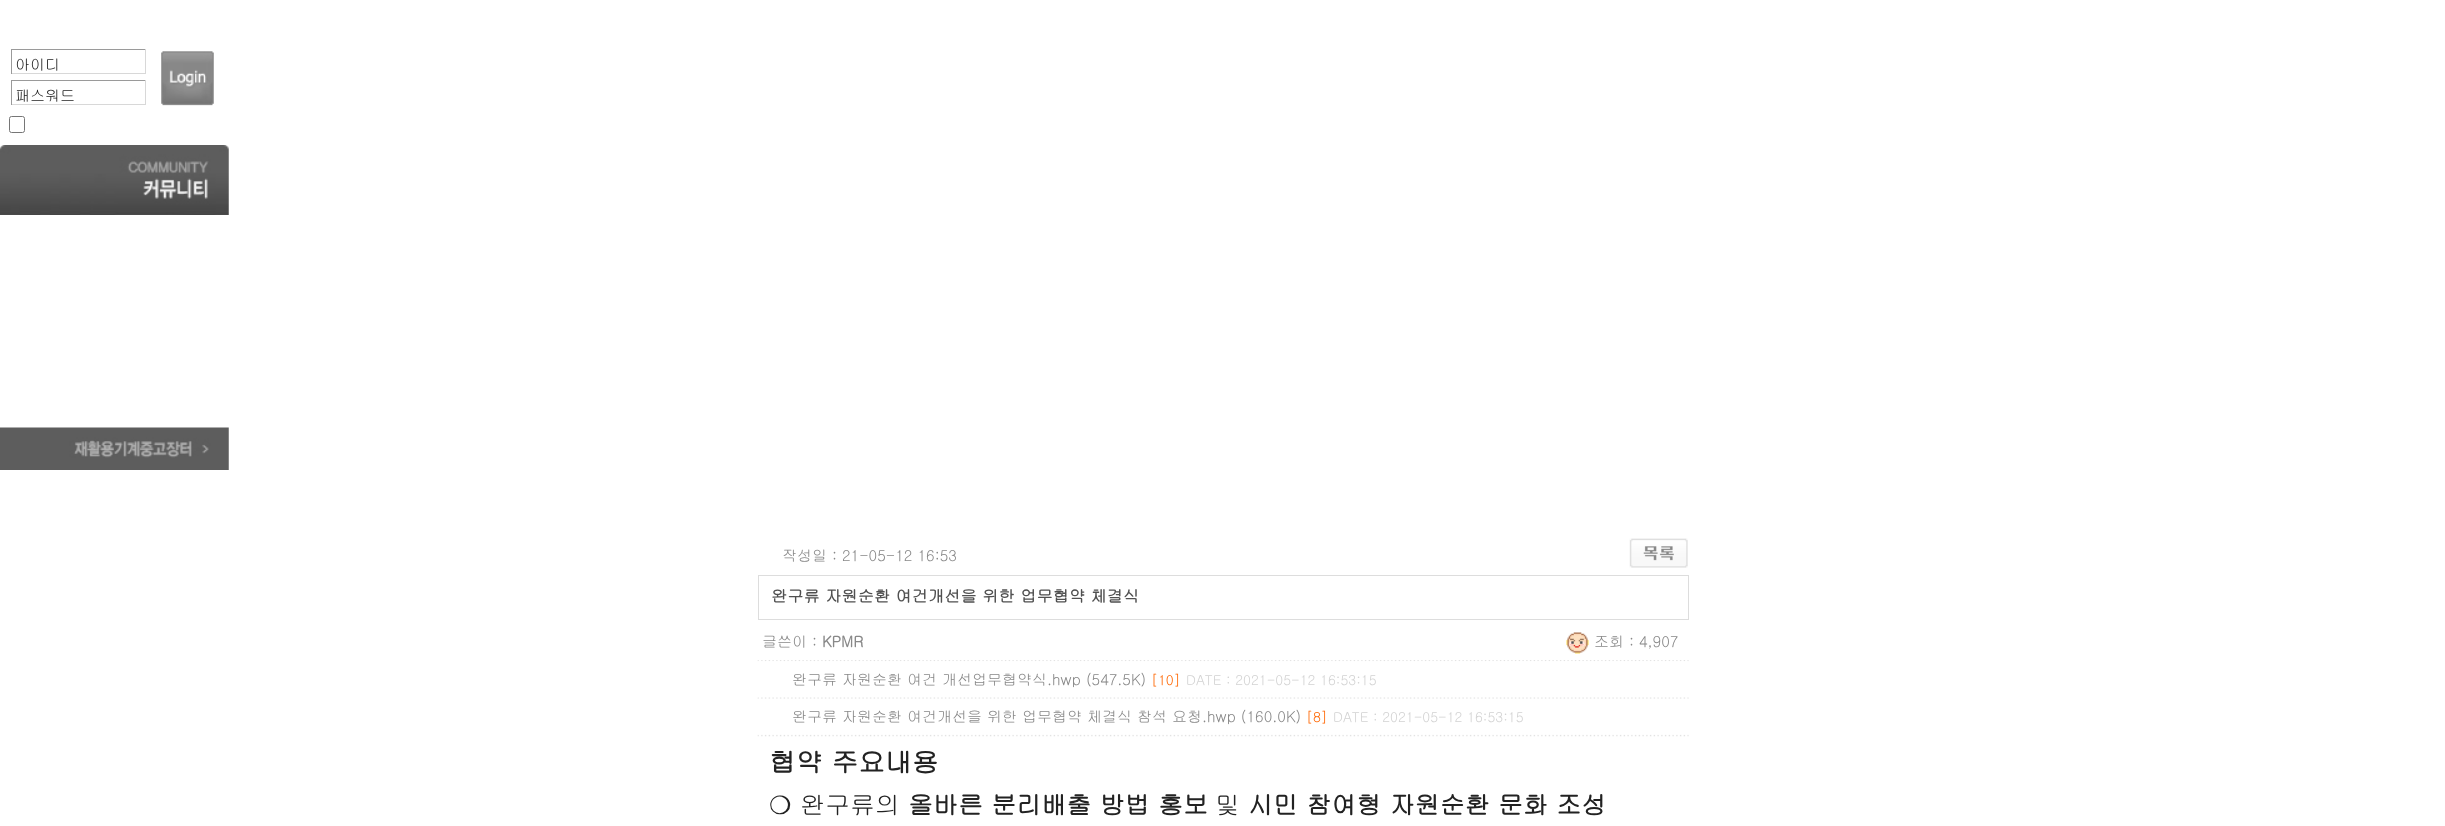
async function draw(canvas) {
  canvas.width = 2445;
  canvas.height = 826;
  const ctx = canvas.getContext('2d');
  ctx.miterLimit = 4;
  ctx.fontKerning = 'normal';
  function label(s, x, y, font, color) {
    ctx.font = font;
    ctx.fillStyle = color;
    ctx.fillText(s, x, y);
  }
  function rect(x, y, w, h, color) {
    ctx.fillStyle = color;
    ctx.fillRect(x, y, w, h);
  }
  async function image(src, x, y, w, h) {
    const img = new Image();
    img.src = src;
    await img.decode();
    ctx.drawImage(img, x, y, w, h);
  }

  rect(0, 0, 2445, 826, '#fff');
  rect(11, 49, 135, 1, '#9a9a9a');
  rect(145, 49, 1, 25, '#d8d8d8');
  rect(11, 73, 135, 1, '#d8d8d8');
  rect(11, 49, 1, 25, '#9a9a9a');
  label('아이디', 15, 70, '15px Gulim', '#222');
  rect(11, 80, 135, 1, '#9a9a9a');
  rect(145, 80, 1, 25, '#d8d8d8');
  rect(11, 104, 135, 1, '#d8d8d8');
  rect(11, 80, 1, 25, '#9a9a9a');
  label('패스워드', 15, 101, '15px Gulim', '#222');
  await image('assets/img1.png', 161, 51, 53, 55);
  ctx.beginPath();
  ctx.roundRect(9.5, 116.5, 15, 16, 2);
  ctx.strokeStyle = '#767676';
  ctx.stroke();
  await image('assets/img2.png', 0, 145, 229, 70);
  await image('assets/img3.png', 0, 427, 229, 43);
  label('작성일 : 21-05-12 16:53', 782, 561, '15px Gulim', '#888');
  await image('assets/img4.png', 1629, 538, 59, 30);
  ctx.strokeStyle = '#ddd';
  ctx.strokeRect(758.5, 575.5, 930, 44);
  label('완구류 자원순환 여건개선을 위한 업무협약 체결식', 771, 602, 'bold 16.25px Gulim', '#505050');
  await image('assets/img5.png', 757, 660, 932, 2);
  label('글쓴이 :', 762, 647, '15px Gulim', '#888');
  label('KPMR', 822, 647, 'bold 15px Gulim', '#888');
  await image('assets/img6.png', 1566, 632, 23, 22);
  label('조회 : 4,907', 1594, 647, '15px Gulim', '#888');
  await image('assets/img7.png', 757, 661, 932, 38);
  label('완구류 자원순환 여건 개선업무협약식.hwp (547.5K)', 792, 685, '15px Gulim', '#888');
  label('[10]', 1151, 685, '13.75px Gulim', '#f60');
  label('DATE : 2021-05-12 16:53:15', 1186, 685, '13.75px Gulim', '#d3d3d3');
  await image('assets/img8.png', 757, 698, 932, 39);
  label('완구류 자원순환 여건개선을 위한 업무협약 체결식 참석 요청.hwp (160.0K)', 792, 722, '15px Gulim', '#888');
  label('[8]', 1306, 722, '13.75px Gulim', '#f60');
  label('DATE : 2021-05-12 16:53:15', 1333, 722, '13.75px Gulim', '#d3d3d3');
  label('협약 주요내용', 769, 772, 'bold 26.75px Gulim', '#222');
  label('❍', 769, 814, '25px DejaVu Sans', '#222');
  label('완구류의', 800, 814, '25px Gulim', '#222');
  label('올바른 분리배출 방법 홍보', 908, 814, 'bold 25px Gulim', '#222');
  label('및', 1215, 814, '25px Gulim', '#222');
  label('시민 참여형 자원순환 문화 조성', 1248, 814, 'bold 25px Gulim', '#222');
}

draw(document.querySelector('canvas'));
